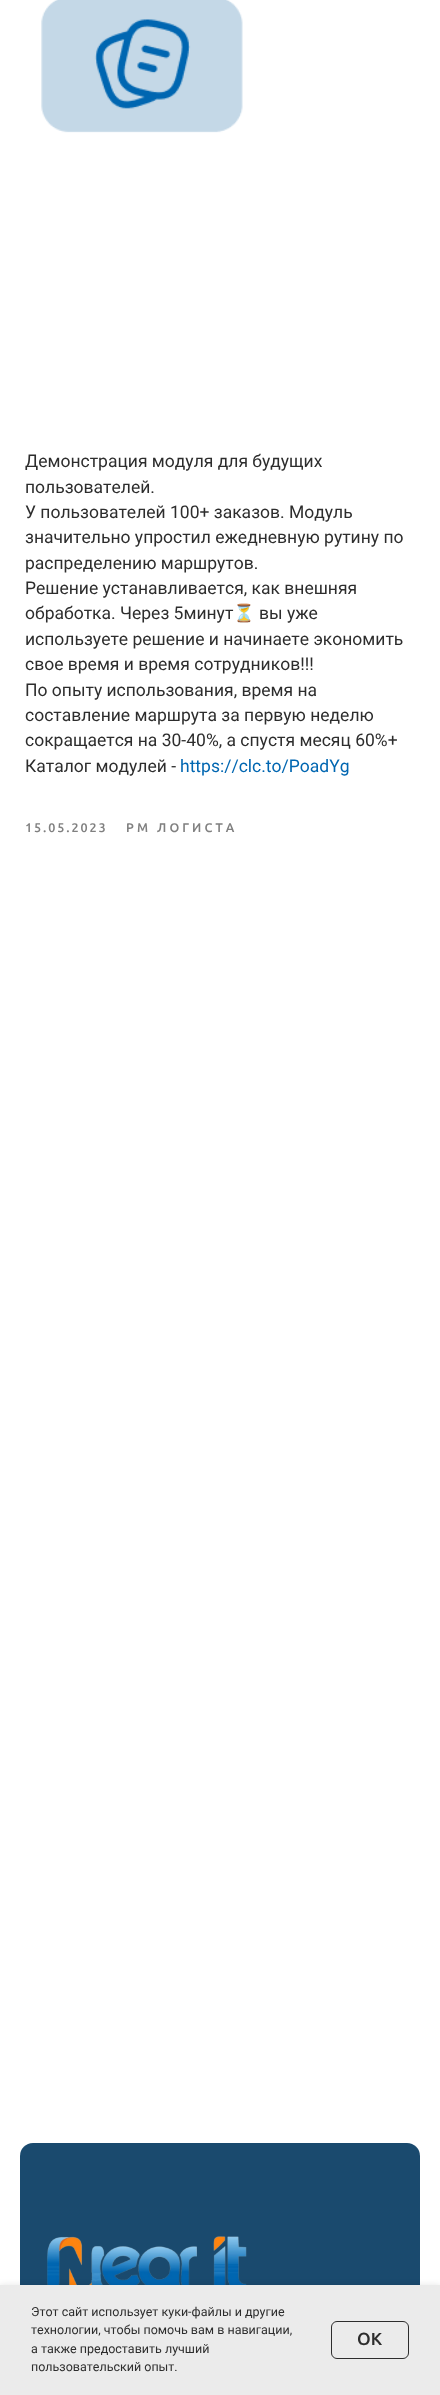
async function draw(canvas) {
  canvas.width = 440;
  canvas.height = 2395;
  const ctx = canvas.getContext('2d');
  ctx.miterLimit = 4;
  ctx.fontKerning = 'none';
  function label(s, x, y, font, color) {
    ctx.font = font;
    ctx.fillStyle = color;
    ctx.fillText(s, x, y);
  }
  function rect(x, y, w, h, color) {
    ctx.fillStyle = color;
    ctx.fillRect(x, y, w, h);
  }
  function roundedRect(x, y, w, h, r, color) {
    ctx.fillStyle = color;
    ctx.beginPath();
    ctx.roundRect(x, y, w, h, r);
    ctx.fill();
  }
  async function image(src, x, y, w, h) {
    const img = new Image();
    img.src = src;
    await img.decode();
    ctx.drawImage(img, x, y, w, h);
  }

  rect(0, 0, 440, 2395, '#fff');
  await image('assets/img1.png', 41, 0, 202, 133);
  label('Демонстрация модуля для будущих', 25, 467, '17.5px Roboto', '#2d2d2d');
  label('пользователей.', 25, 493, '17.5px Roboto', '#2d2d2d');
  label('У пользователей 100+ заказов. Модуль', 25, 518, '17.5px Roboto', '#2d2d2d');
  label('значительно упростил ежедневную рутину по', 25, 543, '17.5px Roboto', '#2d2d2d');
  label('распределению маршрутов.', 25, 569, '17.5px Roboto', '#2d2d2d');
  label('Решение устанавливается, как внешняя', 25, 594, '17.5px Roboto', '#2d2d2d');
  label('обработка. Через 5минут', 25, 619, '17.5px Roboto', '#2d2d2d');
  label('⏳', 233, 619, '17.5px Noto Color Emoji', '#2d2d2d');
  label('вы уже', 259, 619, '17.5px Roboto', '#2d2d2d');
  label('используете решение и начинаете экономить', 25, 645, '17.5px Roboto', '#2d2d2d');
  label('свое время и время сотрудников!!!', 25, 670, '17.5px Roboto', '#2d2d2d');
  label('По опыту использования, время на', 25, 696, '17.5px Roboto', '#2d2d2d');
  label('составление маршрута за первую неделю', 25, 721, '17.5px Roboto', '#2d2d2d');
  label('сокращается на 30-40%, а спустя месяц 60%+', 25, 746, '17.5px Roboto', '#2d2d2d');
  label('Каталог модулей -', 25, 772, '17.5px Roboto', '#2d2d2d');
  label('https://clc.to/PoadYg', 180, 772, '17.5px Roboto', '#0066b1');
  ctx.letterSpacing = '1.9px';
  label('15.05.2023', 25, 832, '500 12.5px Ubuntu', '#808080');
  ctx.letterSpacing = '3.1px';
  label('РМ ЛОГИСТА', 126, 832, '500 12.5px Ubuntu', '#808080');
  roundedRect(20, 2143, 400, 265, 13, '#1a4a6e');
  await image('assets/img2.png', 47, 2236, 200, 49);
  ctx.fillStyle = '#0000001a';
  ctx.filter = 'blur(3px)';
  ctx.beginPath();
  ctx.rect(0, 2285, 440, 110);
  ctx.fill();
  ctx.filter = 'none';
  rect(0, 2285, 440, 110, '#ebebeb');
  ctx.letterSpacing = '0px';
  label('Этот сайт использует куки-файлы и другие', 31, 2316, '12.5px Roboto', '#2d2d2d');
  label('технологии, чтобы помочь вам в навигации,', 31, 2334, '12.5px Roboto', '#2d2d2d');
  label('а также предоставить лучший', 31, 2353, '12.5px Roboto', '#2d2d2d');
  label('пользовательский опыт.', 31, 2371, '12.5px Roboto', '#2d2d2d');
  ctx.beginPath();
  ctx.roundRect(331.5, 2321.5, 77, 37, 5.5);
  ctx.strokeStyle = '#2d2d2d';
  ctx.stroke();
  label('ОК', 357, 2345, '500 17.5px Ubuntu', '#2d2d2d');
}

draw(document.querySelector('canvas'));
